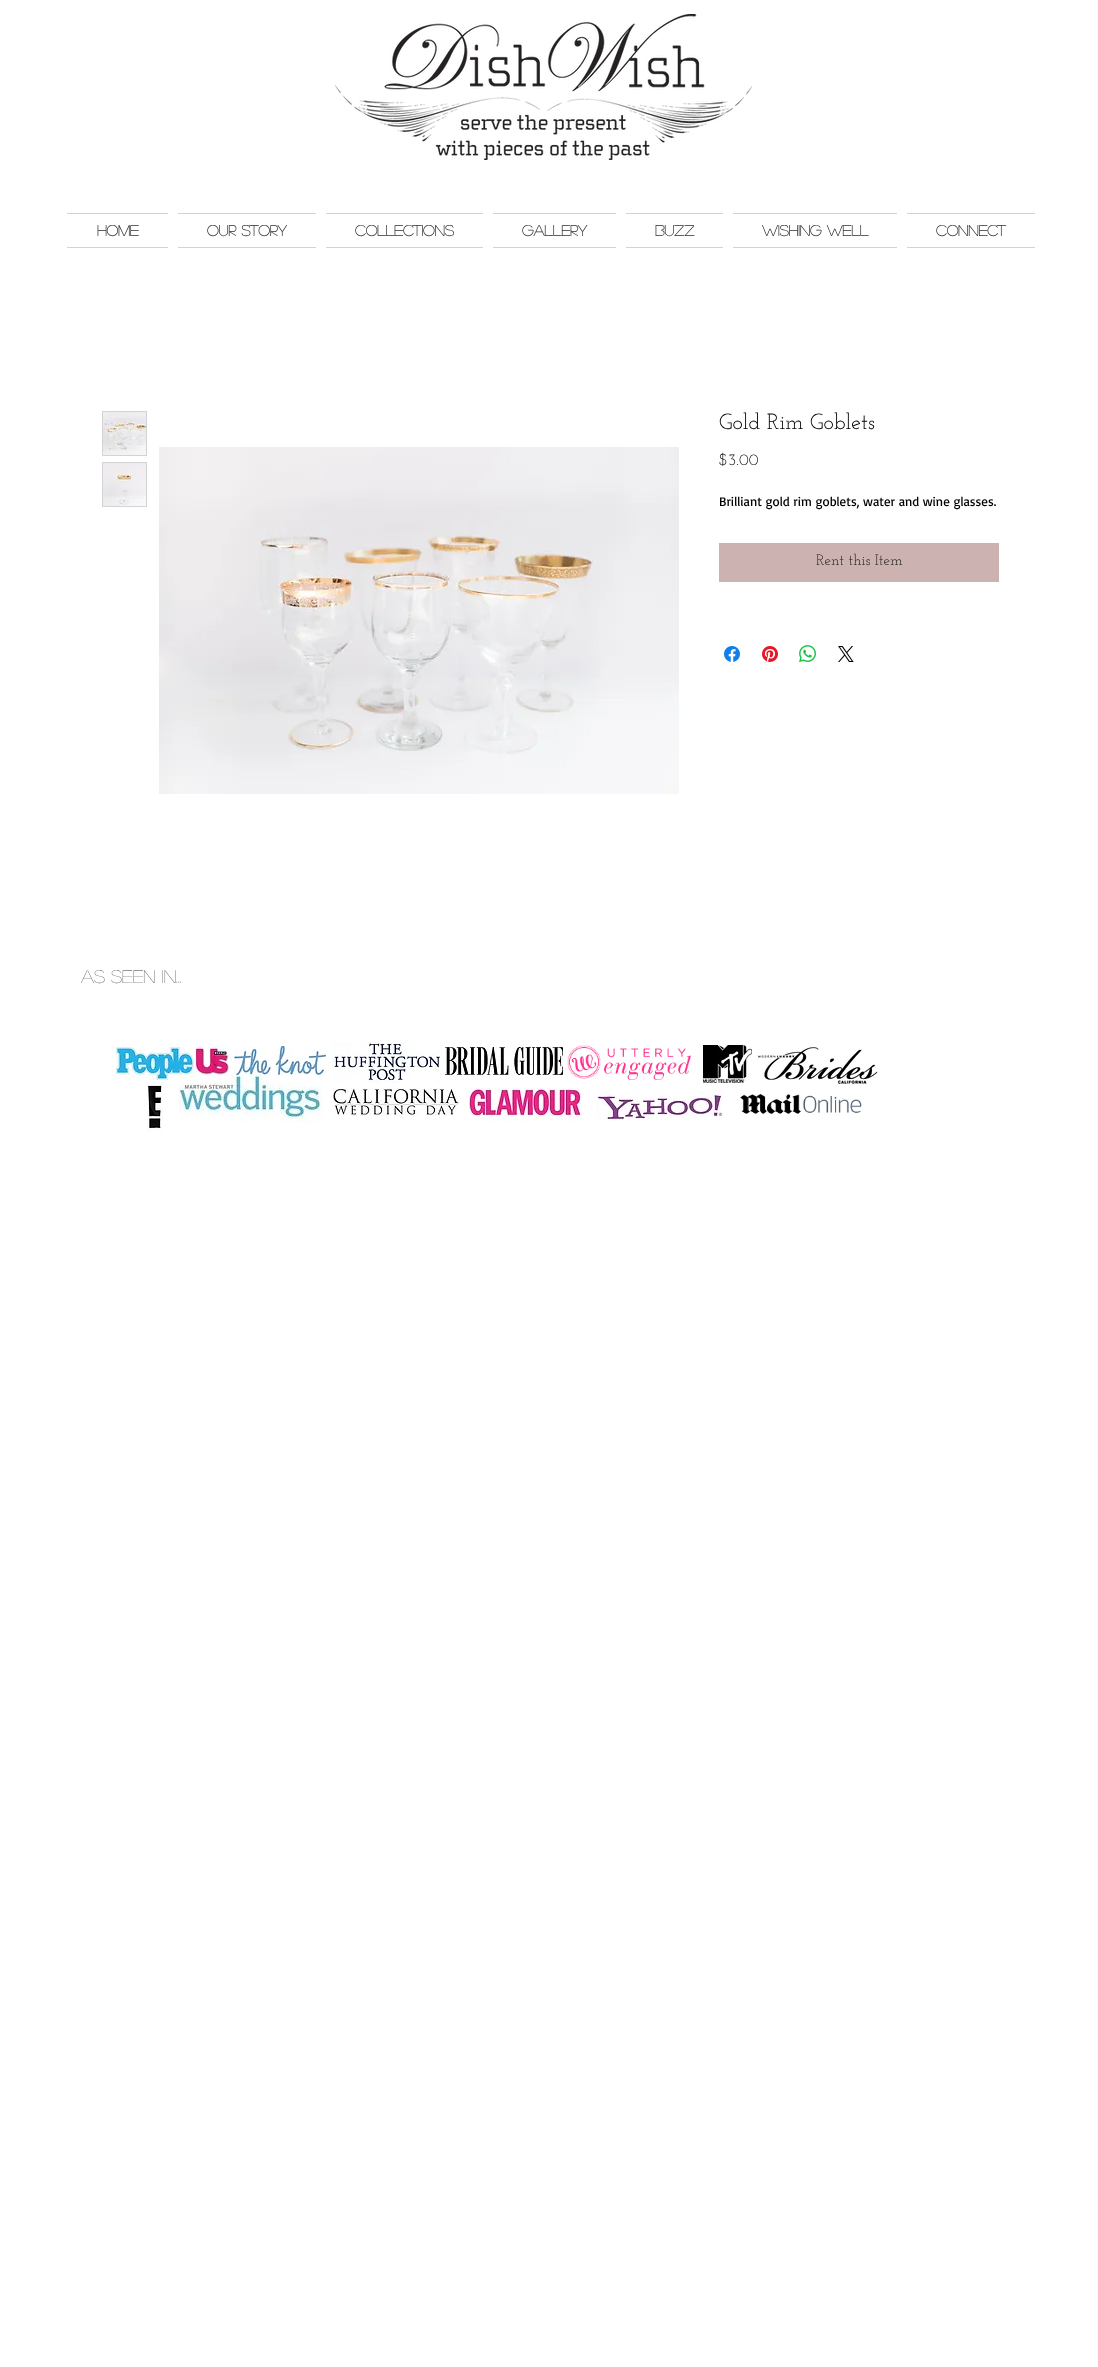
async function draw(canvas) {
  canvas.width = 1098;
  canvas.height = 2367;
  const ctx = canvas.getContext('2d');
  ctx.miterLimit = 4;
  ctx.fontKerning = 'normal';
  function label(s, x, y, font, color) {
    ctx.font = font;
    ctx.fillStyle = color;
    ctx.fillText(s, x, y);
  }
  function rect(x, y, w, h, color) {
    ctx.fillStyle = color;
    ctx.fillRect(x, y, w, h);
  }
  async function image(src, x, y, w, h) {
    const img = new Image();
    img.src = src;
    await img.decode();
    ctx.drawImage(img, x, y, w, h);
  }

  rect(0, 0, 1098, 2367, '#fff');
  await image('assets/img1.png', 335, 14, 417, 146);
  rect(67, 213, 101, 1, '#d4d3d3');
  rect(67, 247, 101, 1, '#d4d3d3');
  label('HOME', 97, 236, 'bold 15px "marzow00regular"', '#332c2c');
  rect(178, 213, 138, 1, '#d4d3d3');
  rect(178, 247, 138, 1, '#d4d3d3');
  label('OUR STORY', 207, 236, 'bold 15px "marzow00regular"', '#332c2c');
  rect(326, 213, 157, 1, '#d4d3d3');
  rect(326, 247, 157, 1, '#d4d3d3');
  label('COLLECTIONS', 355, 236, 'bold 15px "marzow00regular"', '#332c2c');
  rect(493, 213, 123, 1, '#d4d3d3');
  rect(493, 247, 123, 1, '#d4d3d3');
  label('GALLERY', 522, 236, 'bold 15px "marzow00regular"', '#332c2c');
  rect(626, 213, 97, 1, '#d4d3d3');
  rect(626, 247, 97, 1, '#d4d3d3');
  label('BUZZ', 655, 236, 'bold 15px "marzow00regular"', '#332c2c');
  rect(733, 213, 164, 1, '#d4d3d3');
  rect(733, 247, 164, 1, '#d4d3d3');
  label('WISHING WELL', 762, 236, 'bold 15px "marzow00regular"', '#332c2c');
  rect(907, 213, 128, 1, '#d4d3d3');
  rect(907, 247, 128, 1, '#d4d3d3');
  label('CONNECT', 936, 236, 'bold 15px "marzow00regular"', '#332c2c');
  rect(102, 411, 45, 45, '#d4d3d3');
  await image('assets/img2.png', 103, 412, 43, 43);
  rect(102, 462, 45, 45, '#d4d3d3');
  await image('assets/img3.png', 103, 463, 43, 43);
  await image('assets/img4.png', 159, 447, 520, 347);
  label('Gold Rim Goblets', 719, 429, '22px Josefin Slab', '#000');
  label('$3.00', 719, 465, '16px Josefin Slab', '#000');
  label('Brilliant gold rim goblets, water and wine glasses.', 719, 506, '13px Basic', '#000');
  rect(719, 543, 280, 39, '#ccb2b1');
  label('Rent this Item', 816, 565, '15px Josefin Slab', '#1a1a1a');
  await image('assets/img5.png', 724, 646, 16, 16);
  await image('assets/img6.png', 762, 646, 16, 16);
  await image('assets/img7.png', 799, 645, 17, 17);
  await image('assets/img8.png', 838, 646, 16, 16);
  label('As Seen In...', 81, 983, '18px "marzow00regular"', '#332c2c');
  await image('assets/img18.png', 179, 1074, 144, 49);
  await image('assets/img9.png', 116, 1047, 78, 33);
  await image('assets/img10.png', 194, 1044, 35, 32);
  await image('assets/img11.png', 234, 1046, 92, 29);
  await image('assets/img12.png', 332, 1043, 112, 40);
  await image('assets/img13.png', 445, 1047, 118, 28);
  await image('assets/img14.png', 567, 1045, 125, 35);
  await image('assets/img15.png', 703, 1045, 49, 38);
  await image('assets/img16.png', 758, 1047, 120, 37);
  await image('assets/img17.png', 147, 1083, 16, 48);
  await image('assets/img19.png', 333, 1088, 126, 28);
  await image('assets/img20.png', 469, 1088, 113, 34);
  await image('assets/img21.png', 597, 1090, 126, 32);
  await image('assets/img22.png', 740, 1094, 122, 21);
}

draw(document.querySelector('canvas'));
